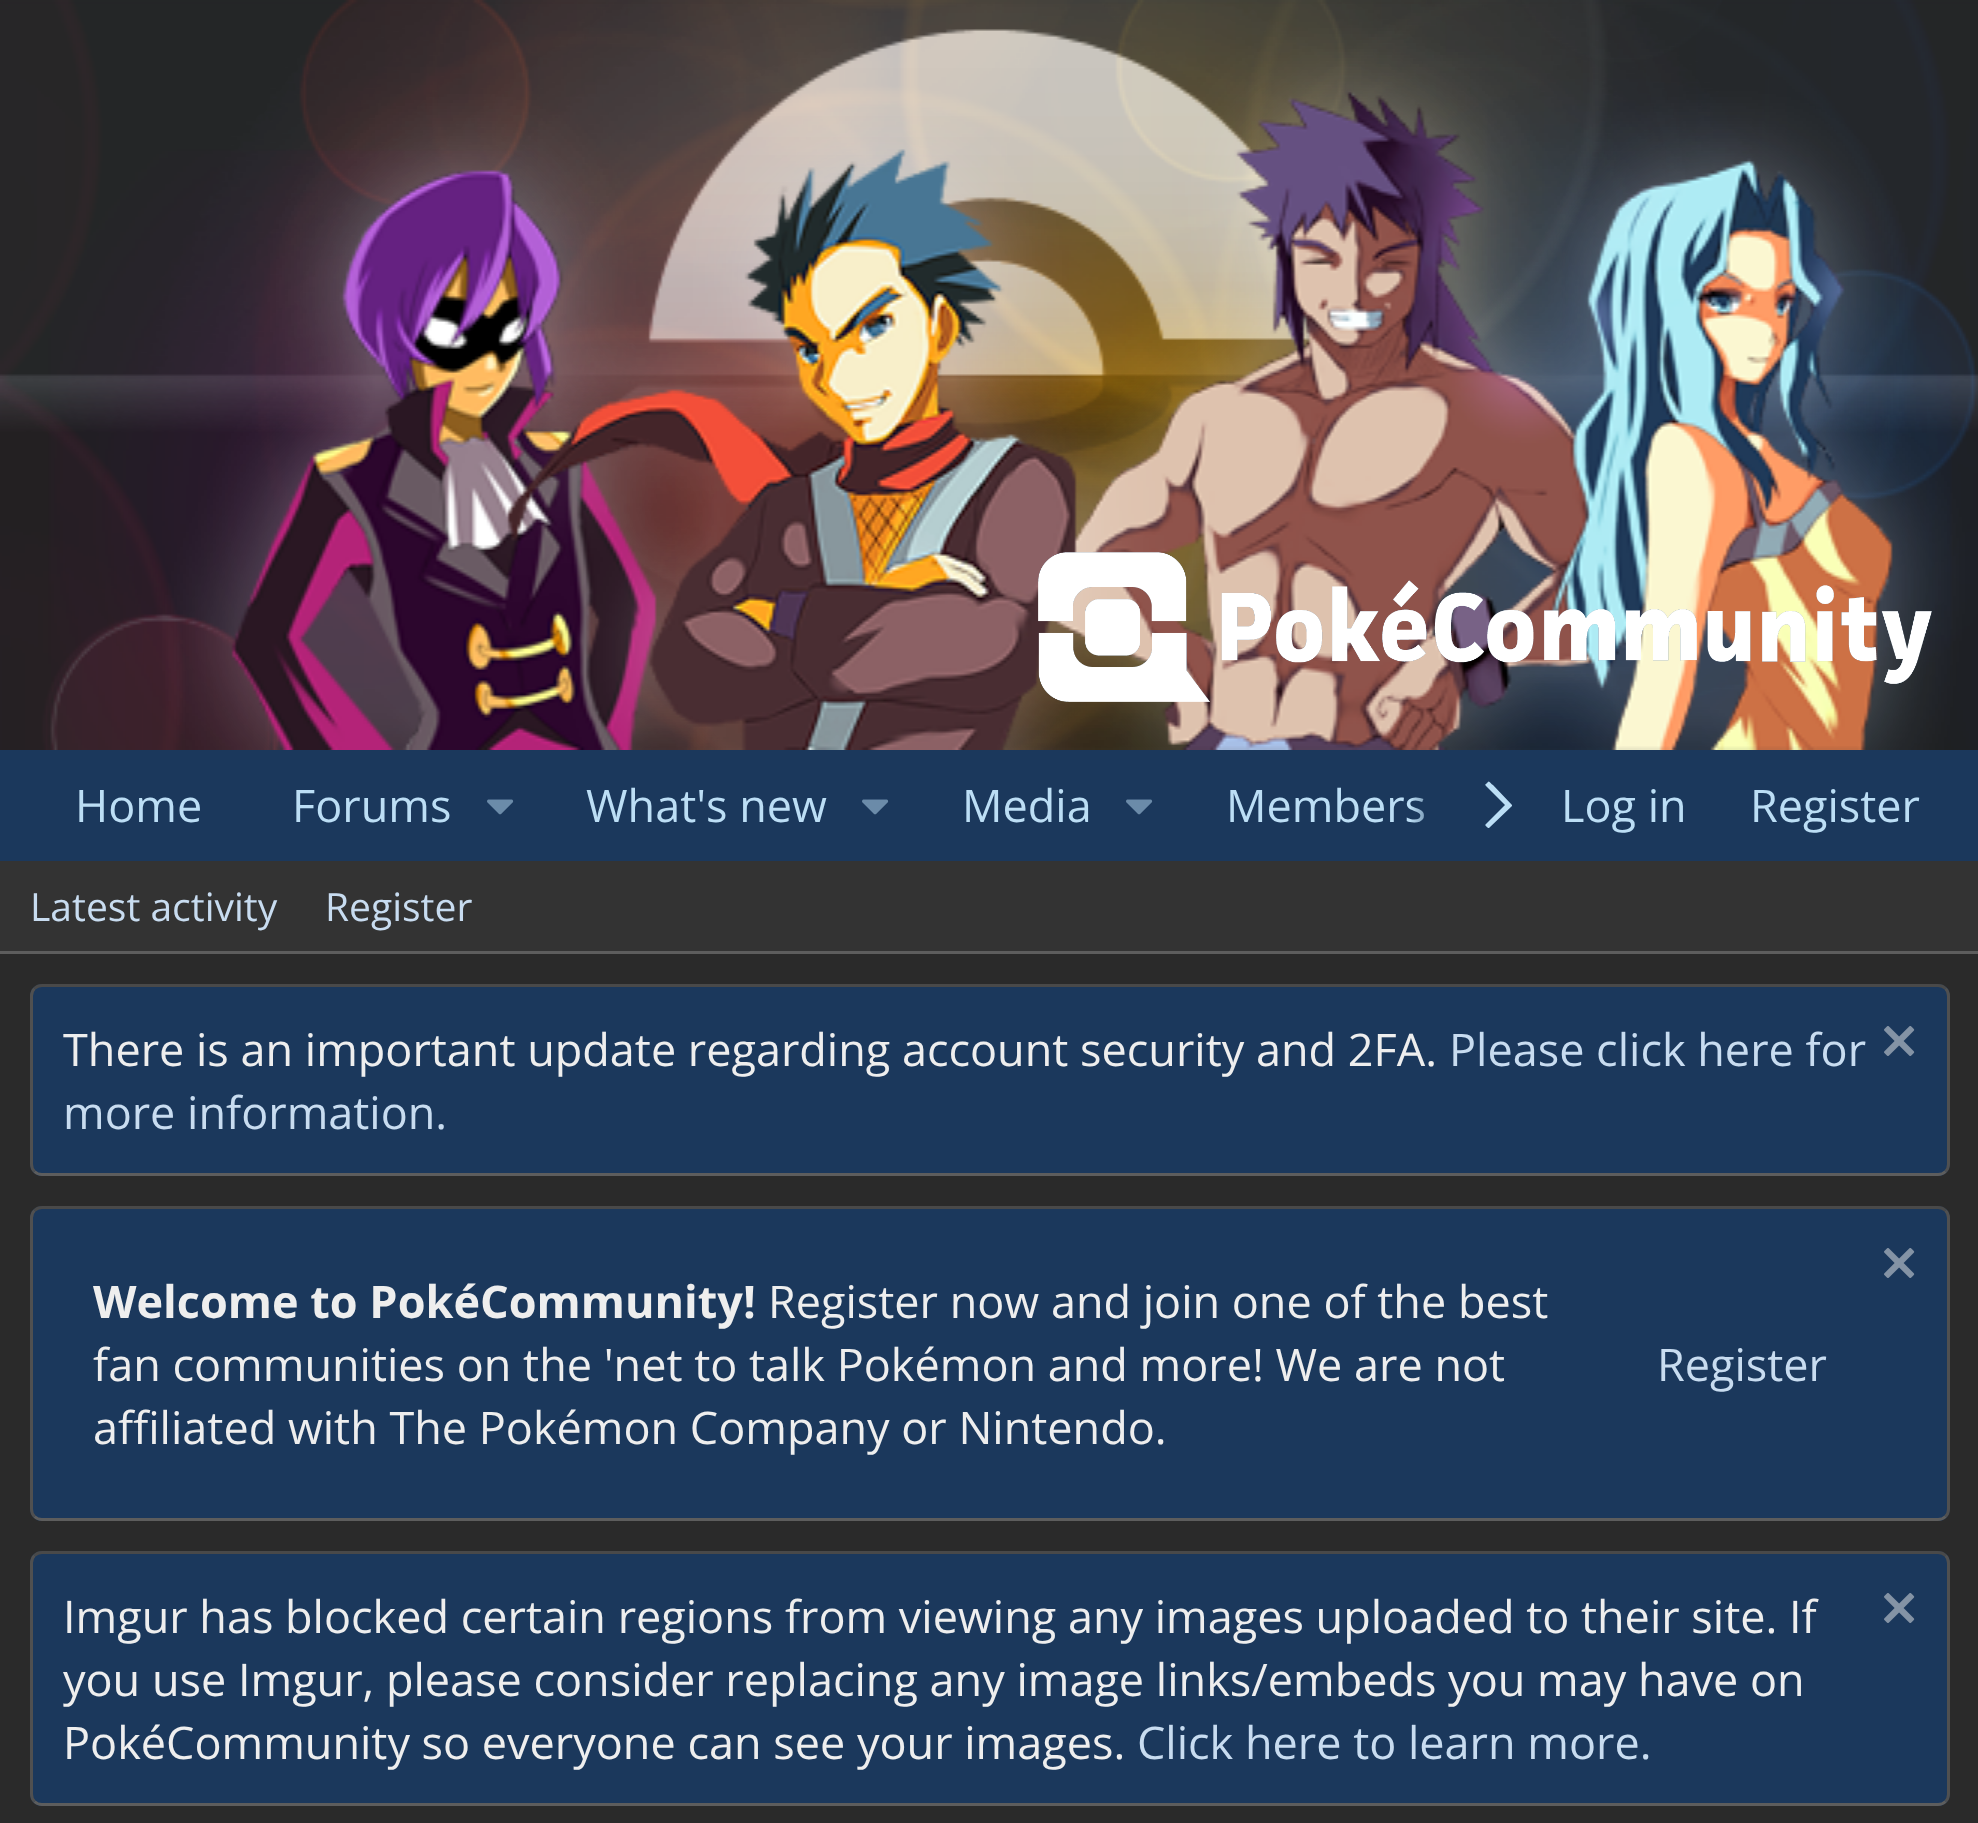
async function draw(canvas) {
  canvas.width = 1978;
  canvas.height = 1823;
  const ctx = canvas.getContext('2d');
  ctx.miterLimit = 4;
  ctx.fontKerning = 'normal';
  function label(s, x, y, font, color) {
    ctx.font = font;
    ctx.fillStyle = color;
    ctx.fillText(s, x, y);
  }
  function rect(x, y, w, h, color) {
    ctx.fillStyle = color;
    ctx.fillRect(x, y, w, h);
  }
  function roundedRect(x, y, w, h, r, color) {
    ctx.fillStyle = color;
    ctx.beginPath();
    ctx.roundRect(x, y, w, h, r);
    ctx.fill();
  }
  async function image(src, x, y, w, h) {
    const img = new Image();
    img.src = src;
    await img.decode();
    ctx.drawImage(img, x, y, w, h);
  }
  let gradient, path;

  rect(0, 0, 1978, 1823, '#2a2a2a');
  await image('assets/img1.png', 0, 0, 1978, 750);
  await image('assets/img2.png', 1038, 552, 894, 150);
  rect(0, 750, 1978, 111, '#1b385c');
  label('Home', 75, 822, '45px Open Sans', '#bcdef5');
  label('Forums', 292, 822, '45px Open Sans', '#bcdef5');
  await image('assets/img3.png', 487, 799, 27, 16);
  label('What\'s new', 586, 822, '45px Open Sans', '#bcdef5');
  await image('assets/img3.png', 862, 799, 27, 16);
  label('Media', 962, 822, '45px Open Sans', '#bcdef5');
  await image('assets/img3.png', 1126, 799, 27, 16);
  label('Members', 1226, 822, '45px Open Sans', '#bcdef5');
  gradient = ctx.createLinearGradient(1410, 806, 1530, 806);
  gradient.addColorStop(0, '#1b385c00');
  gradient.addColorStop(0.33, '#1b385c');
  ctx.fillStyle = gradient;
  ctx.fillRect(1411, 797, 14, 26);
  ctx.fillStyle = '#bcdef5';
  path = new Path2D('M1488 782C1489 780 1491 784 1493 785L1512 805V806L1489 828H1488C1487 827 1484 825 1486 824L1505 805L1486 786C1485 785 1485 784 1486 784Z');
  ctx.fill(path);
  label('Log in', 1561, 822, '45px Open Sans', '#bcdef5');
  label('Register', 1750, 822, '45px Open Sans', '#bcdef5');
  rect(0, 861, 1978, 90, '#333');
  rect(0, 951, 1978, 3, '#5d5d5d');
  label('Latest activity', 30, 921, '39px Open Sans', '#c8dcf0');
  label('Register', 325, 921, '39px Open Sans', '#c8dcf0');
  roundedRect(30, 984, 1920, 192, 12, '#1b385c');
  path = new Path2D('M34.5 988.5C36.5 986.5 39 985.5 42 985.5H1938C1941 985.5 1943.5 986.5 1945.5 988.5');
  ctx.strokeStyle = '#494949';
  ctx.lineWidth = 3;
  ctx.stroke(path);
  path = new Path2D('M1945.5 988.5C1947.5 990.5 1948.5 993 1948.5 996V1164C1948.5 1167 1947.5 1169.5 1945.5 1171.5');
  ctx.strokeStyle = '#505050';
  ctx.stroke(path);
  path = new Path2D('M1945.5 1171.5C1943.5 1173.5 1941 1174.5 1938 1174.5H42C39 1174.5 36.5 1173.5 34.5 1171.5');
  ctx.strokeStyle = '#5d5d5d';
  ctx.stroke(path);
  path = new Path2D('M34.5 1171.5C32.5 1169.5 31.5 1167 31.5 1164V996C31.5 993 32.5 990.5 34.5 988.5');
  ctx.strokeStyle = '#505050';
  ctx.stroke(path);
  label('There is an important update regarding account security and 2FA.', 63, 1066, '45px Open Sans', '#eee');
  label('Please click here for', 1449, 1066, '45px Open Sans', '#c8dcf0');
  await image('assets/img4.png', 1884, 1026, 31, 30);
  label('more information.', 63, 1129, '45px Open Sans', '#c8dcf0');
  roundedRect(30, 1206, 1920, 315, 12, '#1b385c');
  path = new Path2D('M34.5 1210.5C36.5 1208.5 39 1207.5 42 1207.5H1938C1941 1207.5 1943.5 1208.5 1945.5 1210.5');
  ctx.strokeStyle = '#494949';
  ctx.stroke(path);
  path = new Path2D('M1945.5 1210.5C1947.5 1212.5 1948.5 1215 1948.5 1218V1509C1948.5 1512 1947.5 1514.5 1945.5 1516.5');
  ctx.strokeStyle = '#505050';
  ctx.stroke(path);
  path = new Path2D('M1945.5 1516.5C1943.5 1518.5 1941 1519.5 1938 1519.5H42C39 1519.5 36.5 1518.5 34.5 1516.5');
  ctx.strokeStyle = '#5d5d5d';
  ctx.stroke(path);
  path = new Path2D('M34.5 1516.5C32.5 1514.5 31.5 1512 31.5 1509V1218C31.5 1215 32.5 1212.5 34.5 1210.5');
  ctx.strokeStyle = '#505050';
  ctx.stroke(path);
  await image('assets/img4.png', 1884, 1248, 31, 30);
  label('Welcome to PokéCommunity!', 93, 1318, 'bold 45px Open Sans', '#eee');
  label('Register now and join one of the best', 768, 1318, '45px Open Sans', '#eee');
  label('fan communities on the \'net to talk Pokémon and more! We are not', 93, 1381, '45px Open Sans', '#eee');
  label('affiliated with The Pokémon Company or Nintendo.', 93, 1444, '45px Open Sans', '#eee');
  label('Register', 1657, 1381, '45px Open Sans', '#c8dcf0');
  roundedRect(30, 1551, 1920, 255, 12, '#1b385c');
  path = new Path2D('M34.5 1555.5C36.5 1553.5 39 1552.5 42 1552.5H1938C1941 1552.5 1943.5 1553.5 1945.5 1555.5');
  ctx.strokeStyle = '#494949';
  ctx.stroke(path);
  path = new Path2D('M1945.5 1555.5C1947.5 1557.5 1948.5 1560 1948.5 1563V1794C1948.5 1797 1947.5 1799.5 1945.5 1801.5');
  ctx.strokeStyle = '#505050';
  ctx.stroke(path);
  path = new Path2D('M1945.5 1801.5C1943.5 1803.5 1941 1804.5 1938 1804.5H42C39 1804.5 36.5 1803.5 34.5 1801.5');
  ctx.strokeStyle = '#5d5d5d';
  ctx.stroke(path);
  path = new Path2D('M34.5 1801.5C32.5 1799.5 31.5 1797 31.5 1794V1563C31.5 1560 32.5 1557.5 34.5 1555.5');
  ctx.strokeStyle = '#505050';
  ctx.stroke(path);
  label('Imgur has blocked certain regions from viewing any images uploaded to their site. If', 63, 1633, '45px Open Sans', '#eee');
  await image('assets/img4.png', 1884, 1593, 31, 30);
  label('you use Imgur, please consider replacing any image links/embeds you may have on', 63, 1696, '45px Open Sans', '#eee');
  label('PokéCommunity so everyone can see your images.', 63, 1759, '45px Open Sans', '#eee');
  label('Click here to learn more.', 1137, 1759, '45px Open Sans', '#c8dcf0');
}

draw(document.querySelector('canvas'));
